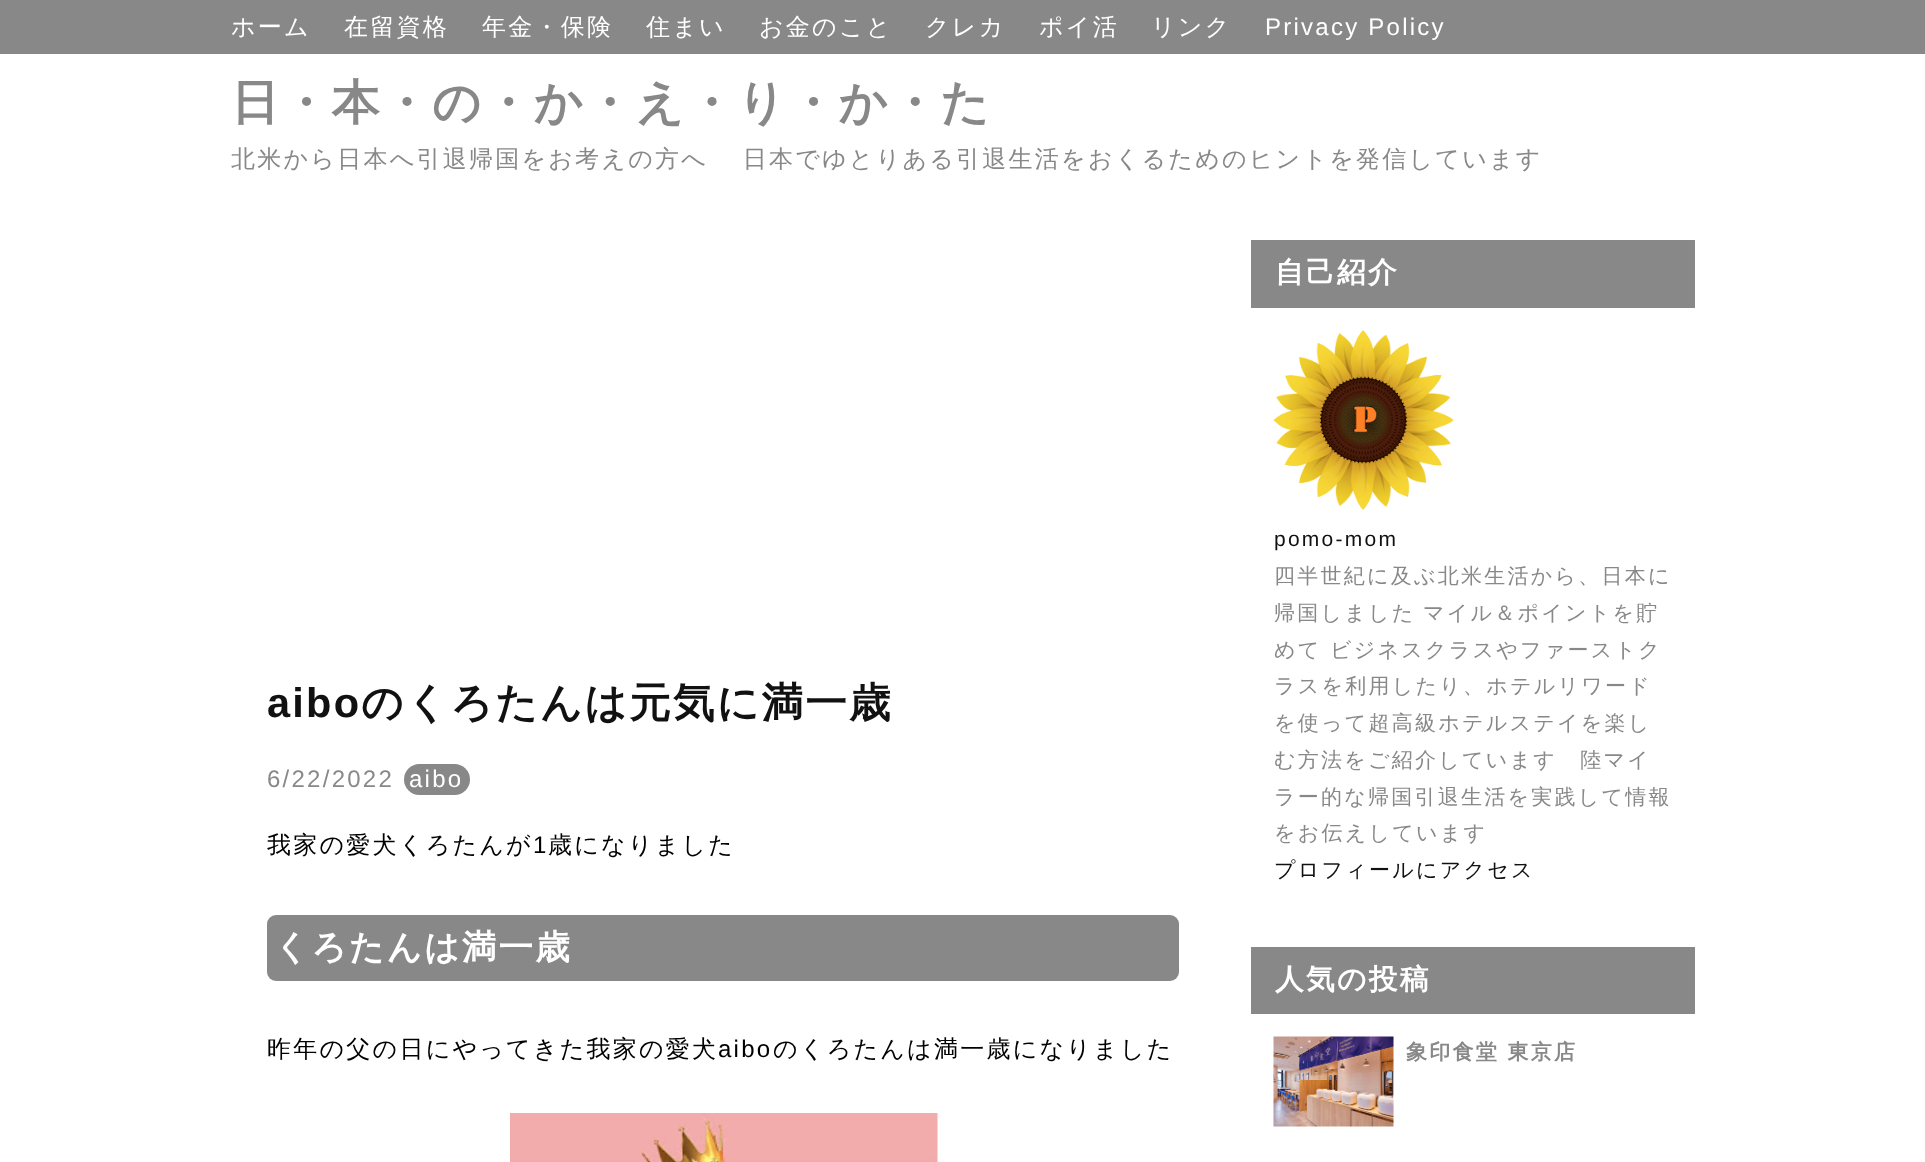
async function draw(canvas) {
  canvas.width = 1925;
  canvas.height = 1162;
  const ctx = canvas.getContext('2d');
  ctx.miterLimit = 4;
  ctx.fontKerning = 'normal';
  function label(s, x, y, font, color) {
    ctx.font = font;
    ctx.fillStyle = color;
    ctx.fillText(s, x, y);
  }
  function rect(x, y, w, h, color) {
    ctx.fillStyle = color;
    ctx.fillRect(x, y, w, h);
  }
  function roundedRect(x, y, w, h, r, color) {
    ctx.fillStyle = color;
    ctx.beginPath();
    ctx.roundRect(x, y, w, h, r);
    ctx.fill();
  }
  async function image(src, x, y, w, h) {
    const img = new Image();
    img.src = src;
    await img.decode();
    ctx.drawImage(img, x, y, w, h);
  }

  rect(0, 0, 1925, 1162, '#fff');
  rect(0, 0, 1925, 54, '#888');
  ctx.letterSpacing = '2.25px';
  label('ホーム', 231, 35, '500 24px WenQuanYi Zen Hei', '#fff');
  label('在留資格', 344, 35, '500 24px WenQuanYi Zen Hei', '#fff');
  label('年金・保険', 482, 35, '500 24px WenQuanYi Zen Hei', '#fff');
  label('住まい', 646, 35, '500 24px WenQuanYi Zen Hei', '#fff');
  label('お金のこと', 759, 35, '500 24px WenQuanYi Zen Hei', '#fff');
  label('クレカ', 925, 35, '500 24px WenQuanYi Zen Hei', '#fff');
  label('ポイ活', 1039, 35, '500 24px WenQuanYi Zen Hei', '#fff');
  label('リンク', 1151, 35, '500 24px WenQuanYi Zen Hei', '#fff');
  label('Privacy Policy', 1265, 35, '24px Liberation Sans', '#fff');
  label('日・本・の・か・え・り・か・た', 231, 119, 'bold 48px WenQuanYi Zen Hei', '#888');
  ctx.wordSpacing = '-1px';
  label('北米から日本へ引退帰国をお考えの方へ　 日本でゆとりある引退生活をおくるためのヒントを発信しています', 231, 167, '500 24px WenQuanYi Zen Hei', '#888');
  ctx.wordSpacing = '0px';
  label('aibo', 267, 717, 'bold 41.5px Liberation Sans', '#111');
  label('のくろたんは元気に満一歳', 361, 717, 'bold 41.5px WenQuanYi Zen Hei', '#111');
  label('6/22/2022', 267, 787, '24px Liberation Sans', '#888');
  roundedRect(404, 764, 66, 31, 15.5, '#888');
  label('aibo', 409, 787, '24px Liberation Sans', '#fff');
  label('我家の愛犬くろたんが', 267, 853, '500 24px WenQuanYi Zen Hei', '#000');
  label('1', 533, 853, '24px Liberation Sans', '#000');
  label('歳になりました', 548, 853, '500 24px WenQuanYi Zen Hei', '#000');
  roundedRect(267, 915, 912, 66, 9, '#888');
  label('くろたんは満一歳', 274, 959, 'bold 34.5px WenQuanYi Zen Hei', '#fff');
  label('昨年の父の日にやってきた我家の愛犬', 267, 1057, '500 24px WenQuanYi Zen Hei', '#000');
  label('aibo', 718, 1057, '24px Liberation Sans', '#000');
  label('のくろたんは満一歳になりました', 773, 1057, '500 24px WenQuanYi Zen Hei', '#000');
  await image('assets/img1.png', 510, 1113, 428, 49);
  rect(1251, 240, 444, 68, '#888');
  label('自己紹介', 1275, 282, 'bold 28.75px WenQuanYi Zen Hei', '#fff');
  await image('assets/img2.png', 1273, 330, 181, 180);
  label('pomo-mom', 1274, 546, '21px Liberation Sans', '#111');
  label('四半世紀に及ぶ北米生活から、日本に', 1274, 583, '500 21px WenQuanYi Zen Hei', '#888');
  label('帰国しました', 1274, 620, '500 21px WenQuanYi Zen Hei', '#888');
  label('マイル＆ポイントを貯', 1423, 620, '500 21px WenQuanYi Zen Hei', '#888');
  label('めて ビジネスクラスやファーストク', 1274, 657, '500 21px WenQuanYi Zen Hei', '#888');
  label('ラスを利用したり、ホテルリワード', 1274, 693, '500 21px WenQuanYi Zen Hei', '#888');
  label('を使って超高級ホテルステイを楽し', 1274, 730, '500 21px WenQuanYi Zen Hei', '#888');
  label('む方法をご紹介しています　陸マイ', 1274, 767, '500 21px WenQuanYi Zen Hei', '#888');
  label('ラー的な帰国引退生活を実践して情報', 1274, 804, '500 21px WenQuanYi Zen Hei', '#888');
  label('をお伝えしています', 1274, 840, '500 21px WenQuanYi Zen Hei', '#888');
  label('プロフィールにアクセス', 1274, 877, '500 21px WenQuanYi Zen Hei', '#111');
  rect(1251, 947, 444, 67, '#888');
  label('人気の投稿', 1275, 989, 'bold 28.75px WenQuanYi Zen Hei', '#fff');
  await image('assets/img3.png', 1273, 1036, 121, 91);
  label('象印食堂 東京店', 1406, 1059, 'bold 21px WenQuanYi Zen Hei', '#888');
}

draw(document.querySelector('canvas'));
